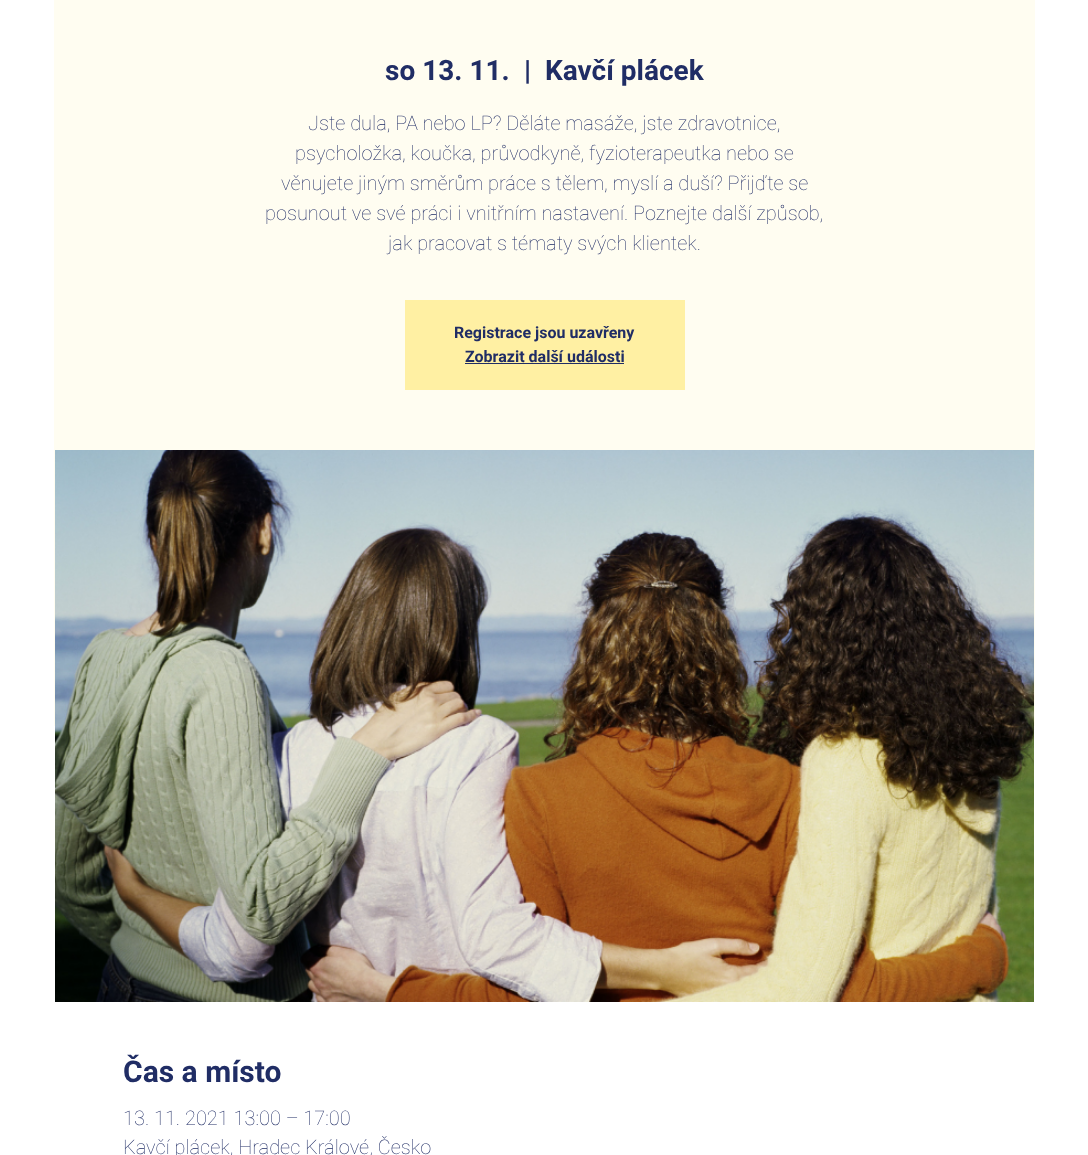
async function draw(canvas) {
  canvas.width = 1088;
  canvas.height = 1155;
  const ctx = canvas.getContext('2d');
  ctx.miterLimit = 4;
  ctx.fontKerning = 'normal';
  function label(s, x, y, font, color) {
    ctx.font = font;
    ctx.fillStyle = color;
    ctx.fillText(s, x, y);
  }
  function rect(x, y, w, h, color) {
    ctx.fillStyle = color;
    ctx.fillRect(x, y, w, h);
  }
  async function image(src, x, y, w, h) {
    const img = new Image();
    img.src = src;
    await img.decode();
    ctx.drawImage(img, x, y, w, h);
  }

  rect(0, 0, 1088, 1155, '#fff');
  rect(54, 0, 981, 726, '#fffdf1');
  label('so 13. 11.', 385, 80, 'bold 28px Roboto', '#202d65');
  label('|', 524, 80, 'bold 28px Roboto', '#202d65');
  label('Kavčí plácek', 545, 80, 'bold 28px Roboto', '#202d65');
  label('Jste dula, PA nebo LP? Děláte masáže, jste zdravotnice,', 308, 130, '100 20px Roboto', '#202d65');
  label('psycholožka, koučka, průvodkyně, fyzioterapeutka nebo se', 295, 160, '100 20px Roboto', '#202d65');
  label('věnujete jiným směrům práce s tělem, myslí a duší? Přijďte se', 281, 190, '100 20px Roboto', '#202d65');
  label('posunout ve své práci i vnitřním nastavení. Poznejte další způsob,', 265, 220, '100 20px Roboto', '#202d65');
  label('jak pracovat s tématy svých klientek.', 388, 250, '100 20px Roboto', '#202d65');
  rect(405, 300, 280, 90, '#fff0a3');
  label('Registrace jsou uzavřeny', 454, 338, 'bold 16px Roboto', '#202d65');
  label('Zobrazit další události', 465, 362, 'bold 16px Roboto', '#202d65');
  rect(465, 363, 159, 1, '#202d65');
  await image('assets/img1.png', 55, 450, 979, 552);
  label('Čas a místo', 123, 1082, 'bold 30px Roboto', '#202d65');
  label('13. 11. 2021 13:00 – 17:00', 123, 1125, '100 20px Roboto', '#202d65');
  label('Kavčí plácek, Hradec Králové, Česko', 123, 1154, '100 20px Roboto', '#202d65');
}

draw(document.querySelector('canvas'));
